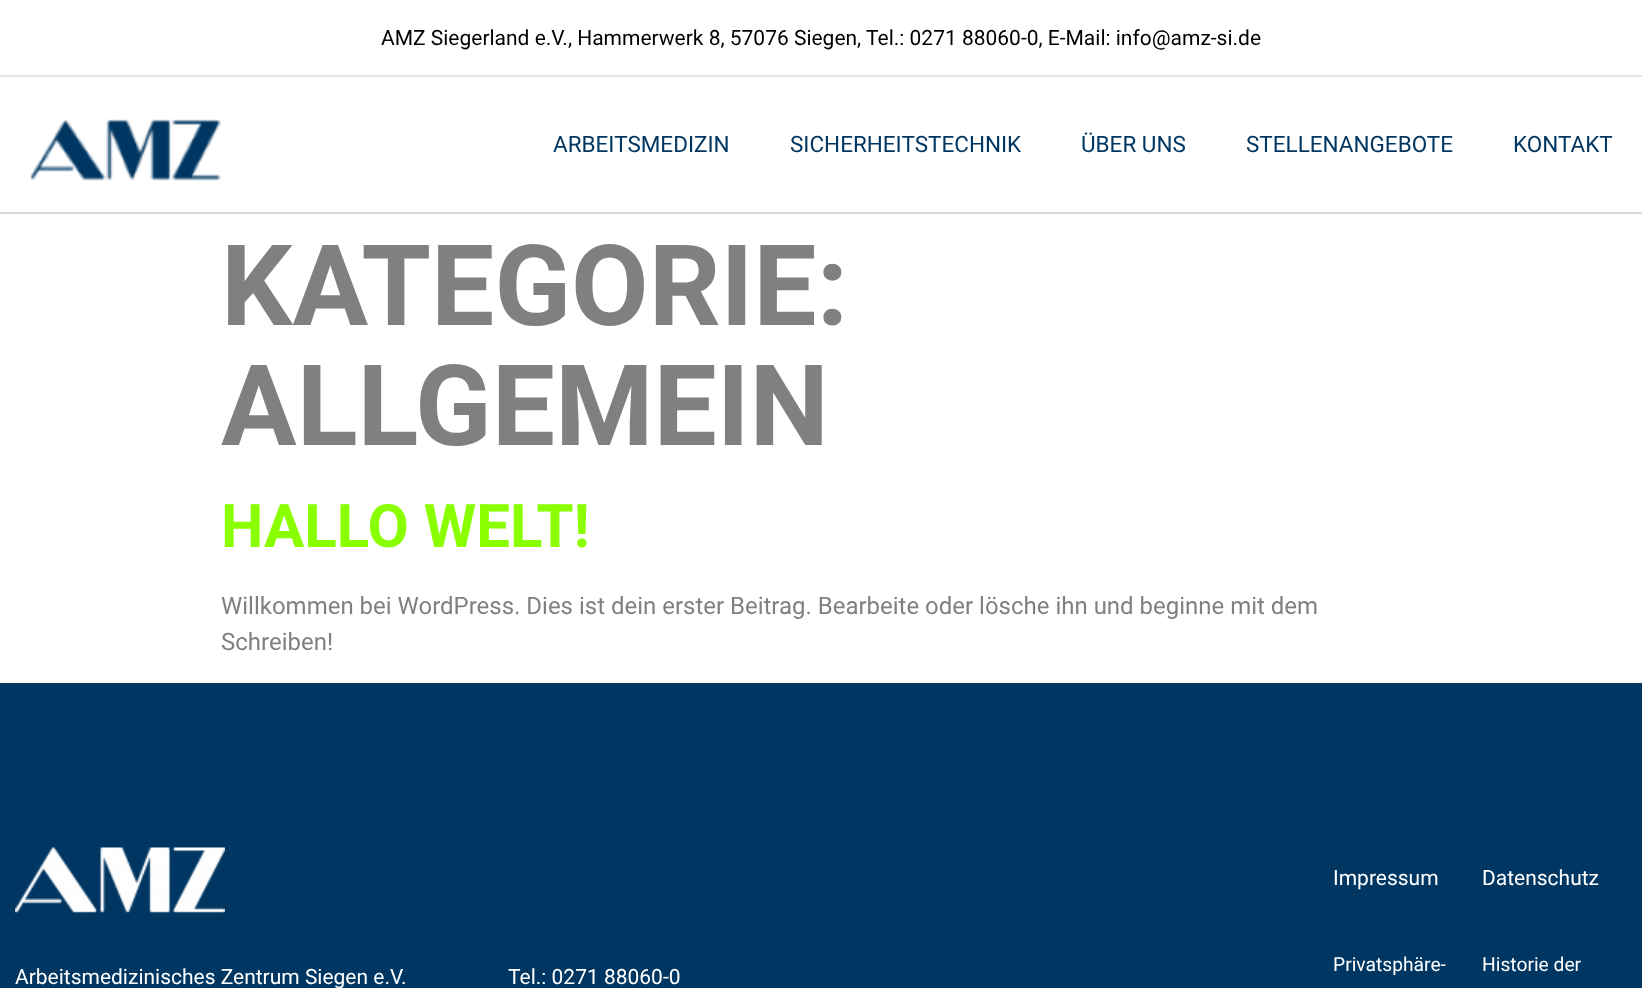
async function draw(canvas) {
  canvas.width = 1642;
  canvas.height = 988;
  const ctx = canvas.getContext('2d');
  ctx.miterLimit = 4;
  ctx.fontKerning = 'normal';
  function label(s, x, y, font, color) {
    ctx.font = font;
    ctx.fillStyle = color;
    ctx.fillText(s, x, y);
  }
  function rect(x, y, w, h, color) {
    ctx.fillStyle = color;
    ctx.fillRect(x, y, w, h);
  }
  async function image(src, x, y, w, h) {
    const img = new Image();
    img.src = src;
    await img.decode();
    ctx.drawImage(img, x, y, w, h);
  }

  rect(0, 0, 1642, 988, '#fff');
  rect(0, 75, 1642, 2, '#e6e6e6');
  label('AMZ Siegerland e.V., Hammerwerk 8, 57076 Siegen, Tel.: 0271 88060-0, E-Mail: info@amz-si.de', 381, 45, '21px Roboto', '#000');
  rect(0, 212, 1642, 2, '#d8d8d8');
  await image('assets/img1.png', 29, 119, 192, 62);
  label('ARBEITSMEDIZIN', 553, 152, '22.5px Roboto', '#003762');
  label('SICHERHEITSTECHNIK', 790, 152, '22.5px Roboto', '#003762');
  label('ÜBER UNS', 1081, 152, '22.5px Roboto', '#003762');
  label('STELLENANGEBOTE', 1246, 152, '22.5px Roboto', '#003762');
  label('KONTAKT', 1513, 152, '22.5px Roboto', '#003762');
  label('KATEGORIE:', 221, 325, 'bold 112.5px Roboto', '#808080');
  label('ALLGEMEIN', 221, 445, 'bold 112.5px Roboto', '#808080');
  label('HALLO WELT!', 221, 547, 'bold 60px Roboto', '#89ff00');
  label('Willkommen bei WordPress. Dies ist dein erster Beitrag. Bearbeite oder lösche ihn und beginne mit dem', 221, 614, '24px Roboto', '#808080');
  label('Schreiben!', 221, 650, '24px Roboto', '#808080');
  rect(0, 683, 1642, 305, '#003762');
  label('Impressum', 1333, 885, '21px Roboto', '#fff');
  label('Datenschutz', 1482, 885, '21px Roboto', '#fff');
  label('Privatsphäre-', 1333, 971, '19.25px Roboto', '#fff');
  label('Historie der', 1482, 971, '19.25px Roboto', '#fff');
  await image('assets/img2.png', 15, 847, 210, 67);
  label('Arbeitsmedizinisches Zentrum Siegen e.V.', 15, 984, '21px Roboto', '#fff');
  label('Tel.: 0271 88060-0', 508, 984, '21px Roboto', '#fff');
}

draw(document.querySelector('canvas'));
